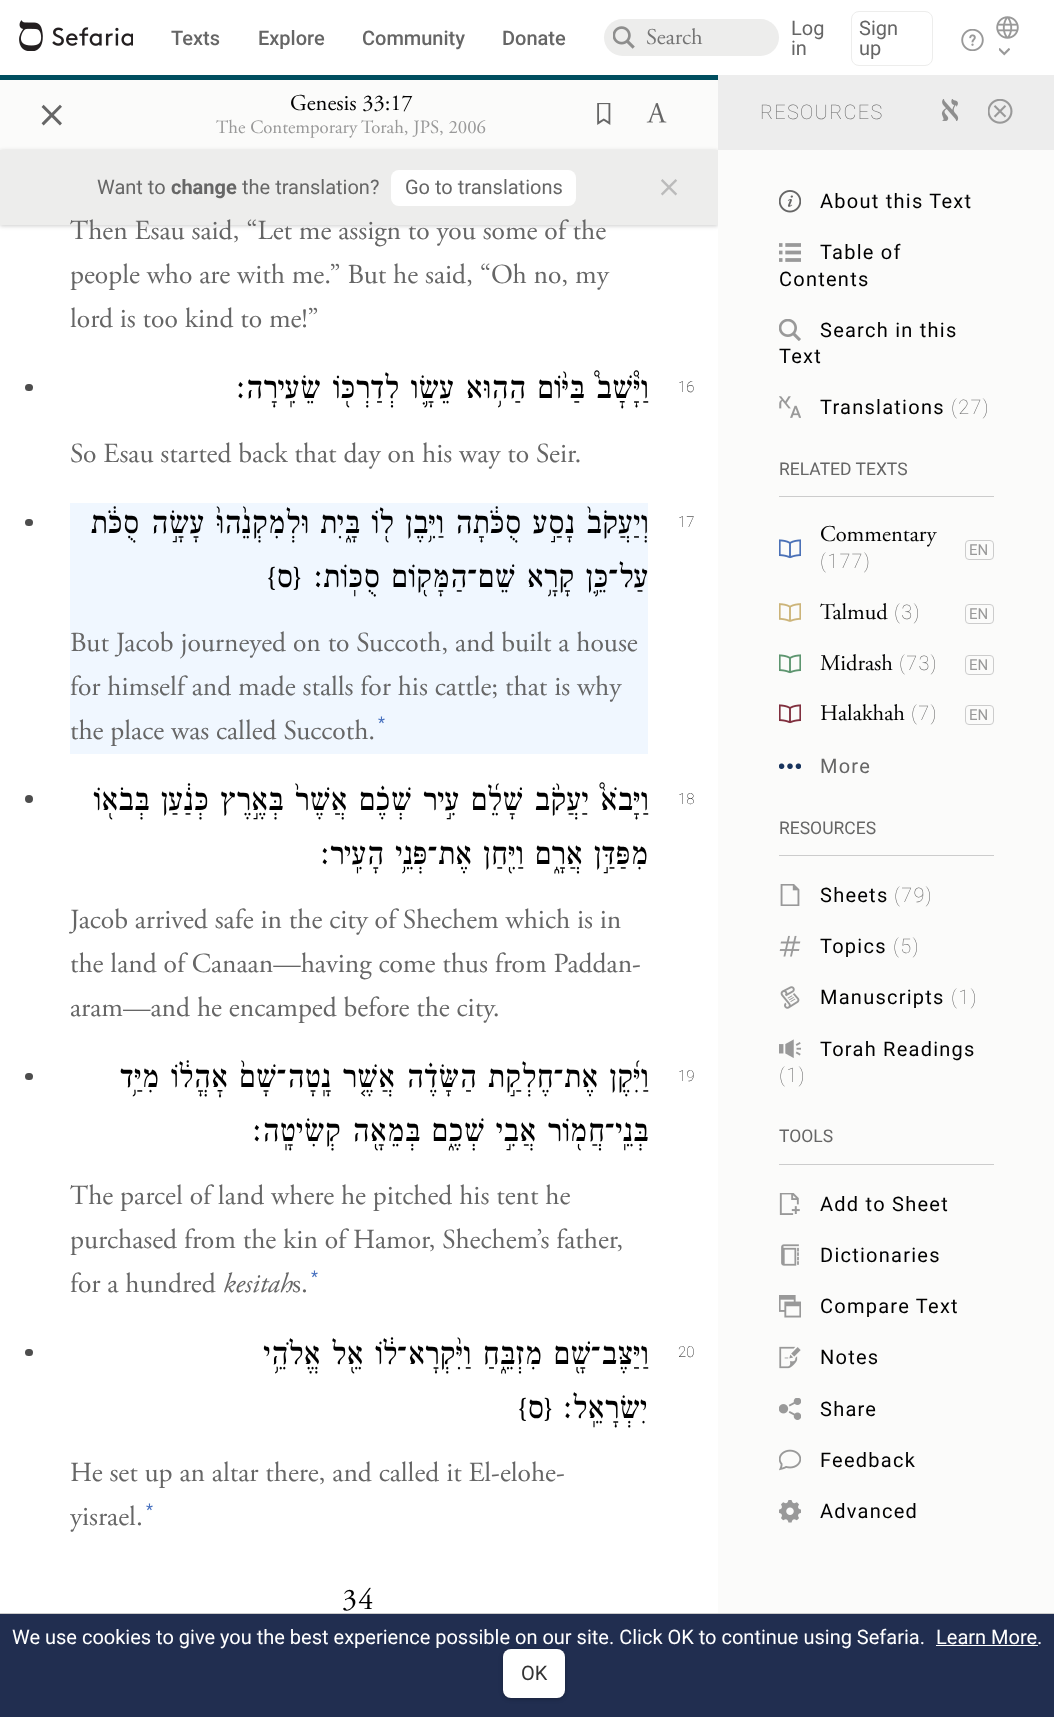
async function draw(canvas) {
  canvas.width = 1054;
  canvas.height = 1717;
  const ctx = canvas.getContext('2d');
  ctx.miterLimit = 4;
  ctx.fontKerning = 'normal';
  function label(s, x, y, font, color) {
    ctx.font = font;
    ctx.fillStyle = color;
    ctx.fillText(s, x, y);
  }
  function rect(x, y, w, h, color) {
    ctx.fillStyle = color;
    ctx.fillRect(x, y, w, h);
  }
  function roundedRect(x, y, w, h, r, color) {
    ctx.fillStyle = color;
    ctx.beginPath();
    ctx.roundRect(x, y, w, h, r);
    ctx.fill();
  }
  async function image(src, x, y, w, h) {
    const img = new Image();
    img.src = src;
    await img.decode();
    ctx.drawImage(img, x, y, w, h);
  }

  rect(0, 0, 1054, 1717, '#fff');
  await image('assets/img1.png', 19, 20, 114, 31);
  label('Texts', 171, 45, '500 20px Roboto', '#666');
  label('Explore', 258, 45, '500 20px Roboto', '#666');
  label('Community', 362, 45, '500 20px Roboto', '#666');
  label('Donate', 502, 45, '500 20px Roboto', '#666');
  roundedRect(604, 19, 175, 37, 18.5, '#ededec');
  await image('assets/img2.png', 613, 26, 22, 23);
  label('Search', 646, 44, '22.5px Adobe Garamond', '#757575');
  label('Log', 791, 35, '20px Roboto', '#666');
  label('in', 791, 55, '20px Roboto', '#666');
  ctx.beginPath();
  ctx.roundRect(851.5, 11.5, 81, 54, 7.5);
  ctx.strokeStyle = '#ededec';
  ctx.stroke();
  label('Sign', 859, 35, '20px Roboto', '#666');
  label('up', 859, 55, '20px Roboto', '#666');
  await image('assets/img3.png', 961, 29, 23, 22);
  await image('assets/img4.png', 996, 16, 23, 23);
  await image('assets/img5.png', 999, 48, 11, 8);
  rect(0, 75, 718, 5, '#004e5f');
  rect(0, 80, 718, 70, '#fbfbfa');
  label('×', 38, 126, '55px Adobe Garamond', '#666');
  label('Genesis 33:17', 290, 110, '22.5px Adobe Garamond', '#000');
  label('The Contemporary Torah, JPS, 2006', 216, 133, '18.75px Adobe Garamond', '#999');
  await image('assets/img6.png', 597, 103, 14, 22);
  await image('assets/img7.png', 646, 103, 21, 20);
  rect(718, 150, 336, 1463, '#fbfbfa');
  ctx.save();
  ctx.beginPath();
  ctx.rect(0, 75, 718, 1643);
  ctx.clip();
  ctx.fillStyle = '#00000033';
  ctx.filter = 'blur(2px)';
  ctx.beginPath();
  ctx.rect(0, 151, 718, 75);
  ctx.fill();
  ctx.filter = 'none';
  ctx.restore();
  rect(0, 150, 718, 75, '#ededec');
  label('Want to', 97, 194, '20px Roboto', '#666');
  label('change', 171, 194, 'bold 20px Roboto', '#666');
  label('the translation?', 242, 194, '20px Roboto', '#666');
  roundedRect(391, 170, 185, 36, 8, '#fff');
  label('Go to translations', 405, 194, '20px Roboto', '#666');
  label('×', 658, 196, '44px Adobe Garamond', '#bbb');
  label('Then Esau said, “Let me assign to you some of the', 70, 239, '27.5px Adobe Garamond', '#666');
  label('people who are with me.” But he said, “Oh no, my', 70, 283, '27.5px Adobe Garamond', '#666');
  label('lord is too kind to me!”', 70, 327, '27.5px Adobe Garamond', '#666');
  roundedRect(25, 384, 8, 7, 3.5, '#4d4d4d');
  ctx.direction = 'rtl';
  label('וַיָּ֩שׇׁב֩ בַּיּ֨וֹם הַה֥וּא עֵשָׂ֛ו לְדַרְכּ֖וֹ שֵׂעִֽירָה׃', 648, 398, '500 33.5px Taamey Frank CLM', '#000');
  ctx.direction = 'ltr';
  label('So Esau started back that day on his way to Seir.', 70, 462, '27.5px Adobe Garamond', '#666');
  label('16', 678, 392, '100 15px Roboto', '#000');
  rect(70, 503, 578, 251, '#f0f7ff');
  roundedRect(25, 519, 8, 7, 3.5, '#4d4d4d');
  ctx.direction = 'rtl';
  label('וְיַעֲקֹב֙ נָסַ֣ע סֻכֹּ֔תָה וַיִּ֥בֶן ל֖וֹ בָּ֑יִת וּלְמִקְנֵ֙הוּ֙ עָשָׂ֣ה סֻכֹּ֔ת', 648, 533, '500 33.5px Taamey Frank CLM', '#000');
  label('{ס}', 302, 587, '500 33.5px Taamey Frank CLM', '#000');
  label('עַל־כֵּ֛ן קָרָ֥א שֵׁם־הַמָּק֖וֹם סֻכּֽוֹת׃', 648, 587, '500 33.5px Taamey Frank CLM', '#000');
  ctx.direction = 'ltr';
  label('But Jacob journeyed on to Succoth, and built a house', 70, 651, '27.5px Adobe Garamond', '#666');
  label('for himself and made stalls for his cattle; that is why', 70, 695, '27.5px Adobe Garamond', '#666');
  label('the place was called Succoth.', 70, 739, '27.5px Adobe Garamond', '#666');
  label('*', 378, 728, '16px Heebo', '#4871bf');
  label('17', 678, 527, '100 15px Roboto', '#000');
  ctx.fillStyle = '#4d4d4d';
  ctx.beginPath();
  ctx.arc(29, 799, 4, 0, 2 * Math.PI);
  ctx.fill();
  ctx.direction = 'rtl';
  label('וַיָּבֹא֩ יַעֲקֹ֨ב שָׁלֵ֜ם עִ֣יר שְׁכֶ֗ם אֲשֶׁר֙ בְּאֶ֣רֶץ כְּנַ֔עַן בְּבֹא֖וֹ', 648, 810, '500 33.5px Taamey Frank CLM', '#000');
  label('מִפַּדַּ֣ן אֲרָ֑ם וַיִּ֖חַן אֶת־פְּנֵ֥י הָעִֽיר׃', 648, 864, '500 33.5px Taamey Frank CLM', '#000');
  ctx.direction = 'ltr';
  label('Jacob arrived safe in the city of Shechem which is in', 70, 928, '27.5px Adobe Garamond', '#666');
  label('the land of Canaan—having come thus from Paddan-', 70, 972, '27.5px Adobe Garamond', '#666');
  label('aram—and he encamped before the city.', 70, 1016, '27.5px Adobe Garamond', '#666');
  label('18', 678, 804, '100 15px Roboto', '#000');
  roundedRect(25, 1073, 8, 7, 3.5, '#4d4d4d');
  ctx.direction = 'rtl';
  label('וַיִּ֜קֶן אֶת־חֶלְקַ֣ת הַשָּׂדֶ֗ה אֲשֶׁ֤ר נָֽטָה־שָׁם֙ אׇהֳל֔וֹ מִיַּ֥ד', 648, 1087, '500 33.5px Taamey Frank CLM', '#000');
  label('בְּנֵֽי־חֲמ֖וֹר אֲבִ֣י שְׁכֶ֑ם בְּמֵאָ֖ה קְשִׂיטָֽה׃', 648, 1141, '500 33.5px Taamey Frank CLM', '#000');
  ctx.direction = 'ltr';
  label('The parcel of land where he pitched his tent he', 70, 1204, '27.5px Adobe Garamond', '#666');
  label('purchased from the kin of Hamor, Shechem’s father,', 70, 1248, '27.5px Adobe Garamond', '#666');
  label('for a hundred', 70, 1292, '27.5px Adobe Garamond', '#666');
  label('kesitah', 223, 1292, 'italic 27.5px Adobe Garamond', '#666');
  label('s.', 292, 1292, '27.5px Adobe Garamond', '#666');
  label('*', 311, 1282, '16px Heebo', '#4871bf');
  label('19', 678, 1081, '100 15px Roboto', '#000');
  roundedRect(25, 1349, 8, 7, 3.5, '#4d4d4d');
  ctx.direction = 'rtl';
  label('וַיַּצֶּב־שָׁ֖ם מִזְבֵּ֑חַ וַיִּ֨קְרָא־ל֔וֹ אֵ֖ל אֱלֹהֵ֥י', 648, 1364, '500 33.5px Taamey Frank CLM', '#000');
  label('{ס}', 553, 1418, '500 33.5px Taamey Frank CLM', '#000');
  label('יִשְׂרָאֵֽל׃', 647, 1418, '500 33.5px Taamey Frank CLM', '#000');
  ctx.direction = 'ltr';
  label('He set up an altar there, and called it El-elohe-', 70, 1481, '27.5px Adobe Garamond', '#666');
  label('yisrael.', 70, 1525, '27.5px Adobe Garamond', '#666');
  label('*', 146, 1515, '16px Heebo', '#4871bf');
  label('20', 678, 1357, '100 15px Roboto', '#000');
  ctx.letterSpacing = '1.25px';
  label('34', 342, 1609, '30px Adobe Garamond', '#000');
  rect(718, 75, 336, 75, '#ededed');
  label('RESOURCES', 760, 119, '100 20px Roboto', '#666');
  await image('assets/img8.png', 941, 99, 18, 22);
  await image('assets/img9.png', 988, 99, 25, 25);
  await image('assets/img10.png', 779, 190, 22, 23);
  label('About this Text', 820, 208, '20px Roboto', '#000');
  await image('assets/img11.png', 779, 243, 22, 19);
  label('Table of', 820, 259, '20px Roboto', '#000');
  label('Contents', 779, 286, '20px Roboto', '#000');
  await image('assets/img12.png', 779, 319, 22, 22);
  label('Search in this', 820, 337, '20px Roboto', '#000');
  label('Text', 779, 363, '20px Roboto', '#000');
  await image('assets/img13.png', 779, 396, 22, 22);
  label('Translations', 820, 414, '20px Roboto', '#000');
  label('(27)', 951, 414, '100 20px Roboto', '#666');
  rect(779, 496, 215, 1, '#ccc');
  ctx.letterSpacing = '0px';
  label('RELATED TEXTS', 779, 475, '17.5px Roboto', '#666');
  await image('assets/img14.png', 779, 539, 22, 20);
  label('Commentary', 820, 541, '22.5px Adobe Garamond', '#000');
  ctx.letterSpacing = '1.25px';
  label('(177)', 820, 568, '100 20px Roboto', '#666');
  ctx.beginPath();
  ctx.roundRect(965.5, 540.5, 28, 19, 3.5);
  ctx.strokeStyle = '#ccc';
  ctx.stroke();
  ctx.letterSpacing = '0px';
  label('EN', 969, 555, '15px Roboto', '#999');
  await image('assets/img15.png', 779, 603, 22, 19);
  label('Talmud', 820, 619, '22.5px Adobe Garamond', '#000');
  ctx.letterSpacing = '1.25px';
  label('(3)', 894, 619, '100 20px Roboto', '#666');
  ctx.beginPath();
  ctx.roundRect(965.5, 604.5, 28, 19, 3.5);
  ctx.stroke();
  ctx.letterSpacing = '0px';
  label('EN', 969, 619, '15px Roboto', '#999');
  await image('assets/img16.png', 779, 654, 22, 20);
  label('Midrash', 820, 670, '22.5px Adobe Garamond', '#000');
  ctx.letterSpacing = '1.25px';
  label('(73)', 899, 670, '100 20px Roboto', '#666');
  ctx.beginPath();
  ctx.roundRect(965.5, 655.5, 28, 19, 3.5);
  ctx.stroke();
  ctx.letterSpacing = '0px';
  label('EN', 969, 670, '15px Roboto', '#999');
  await image('assets/img17.png', 779, 704, 22, 20);
  label('Halakhah', 820, 720, '22.5px Adobe Garamond', '#000');
  ctx.letterSpacing = '1.25px';
  label('(7)', 911, 720, '100 20px Roboto', '#666');
  ctx.beginPath();
  ctx.roundRect(965.5, 705.5, 28, 19, 3.5);
  ctx.stroke();
  ctx.letterSpacing = '0px';
  label('EN', 969, 720, '15px Roboto', '#999');
  await image('assets/img18.png', 779, 763, 22, 6);
  ctx.letterSpacing = '1.25px';
  label('More', 820, 773, '20px Roboto', '#666');
  rect(779, 855, 215, 1, '#ccc');
  ctx.letterSpacing = '0px';
  label('RESOURCES', 779, 834, '17.5px Roboto', '#666');
  await image('assets/img19.png', 780, 884, 20, 22);
  ctx.letterSpacing = '1.25px';
  label('Sheets', 820, 902, '20px Roboto', '#000');
  label('(79)', 894, 902, '100 20px Roboto', '#666');
  await image('assets/img20.png', 779, 935, 22, 22);
  label('Topics', 820, 953, '20px Roboto', '#000');
  label('(5)', 893, 953, '100 20px Roboto', '#666');
  await image('assets/img21.png', 780, 986, 20, 23);
  label('Manuscripts', 820, 1004, '20px Roboto', '#000');
  label('(1)', 951, 1004, '100 20px Roboto', '#666');
  await image('assets/img22.png', 779, 1039, 22, 19);
  label('Torah Readings', 820, 1056, '20px Roboto', '#000');
  label('(1)', 779, 1082, '100 20px Roboto', '#666');
  rect(779, 1164, 215, 1, '#ccc');
  ctx.letterSpacing = '0px';
  label('TOOLS', 779, 1142, '17.5px Roboto', '#666');
  await image('assets/img23.png', 779, 1193, 21, 22);
  ctx.letterSpacing = '1.25px';
  label('Add to Sheet', 820, 1211, '20px Roboto', '#000');
  await image('assets/img24.png', 781, 1244, 18, 22);
  label('Dictionaries', 820, 1262, '20px Roboto', '#000');
  await image('assets/img25.png', 779, 1295, 22, 23);
  label('Compare Text', 820, 1313, '20px Roboto', '#000');
  await image('assets/img26.png', 779, 1346, 22, 23);
  label('Notes', 820, 1364, '20px Roboto', '#000');
  await image('assets/img27.png', 779, 1398, 22, 22);
  label('Share', 820, 1416, '20px Roboto', '#000');
  await image('assets/img28.png', 779, 1449, 22, 22);
  label('Feedback', 820, 1467, '20px Roboto', '#000');
  await image('assets/img29.png', 779, 1500, 22, 23);
  label('Advanced', 820, 1518, '20px Roboto', '#000');
  rect(0, 1614, 1054, 103, '#212e50');
  rect(0, 1613, 1054, 1, '#ccc');
  ctx.letterSpacing = '0px';
  label('We use cookies to give you the best experience possible on our site. Click OK to continue using Sefaria.', 12, 1644, '20px Roboto', '#fff');
  label('Learn More.', 936, 1644, '20px Roboto', '#fff');
  rect(936, 1645, 102, 1, '#fff');
  ctx.fillStyle = '#00000040';
  ctx.filter = 'blur(2px)';
  ctx.beginPath();
  ctx.roundRect(503, 1650, 62, 49, 8);
  ctx.fill();
  ctx.filter = 'none';
  roundedRect(503, 1649, 62, 49, 8, '#fff');
  label('OK', 521, 1680, '20px Roboto', '#333');
}

draw(document.querySelector('canvas'));
